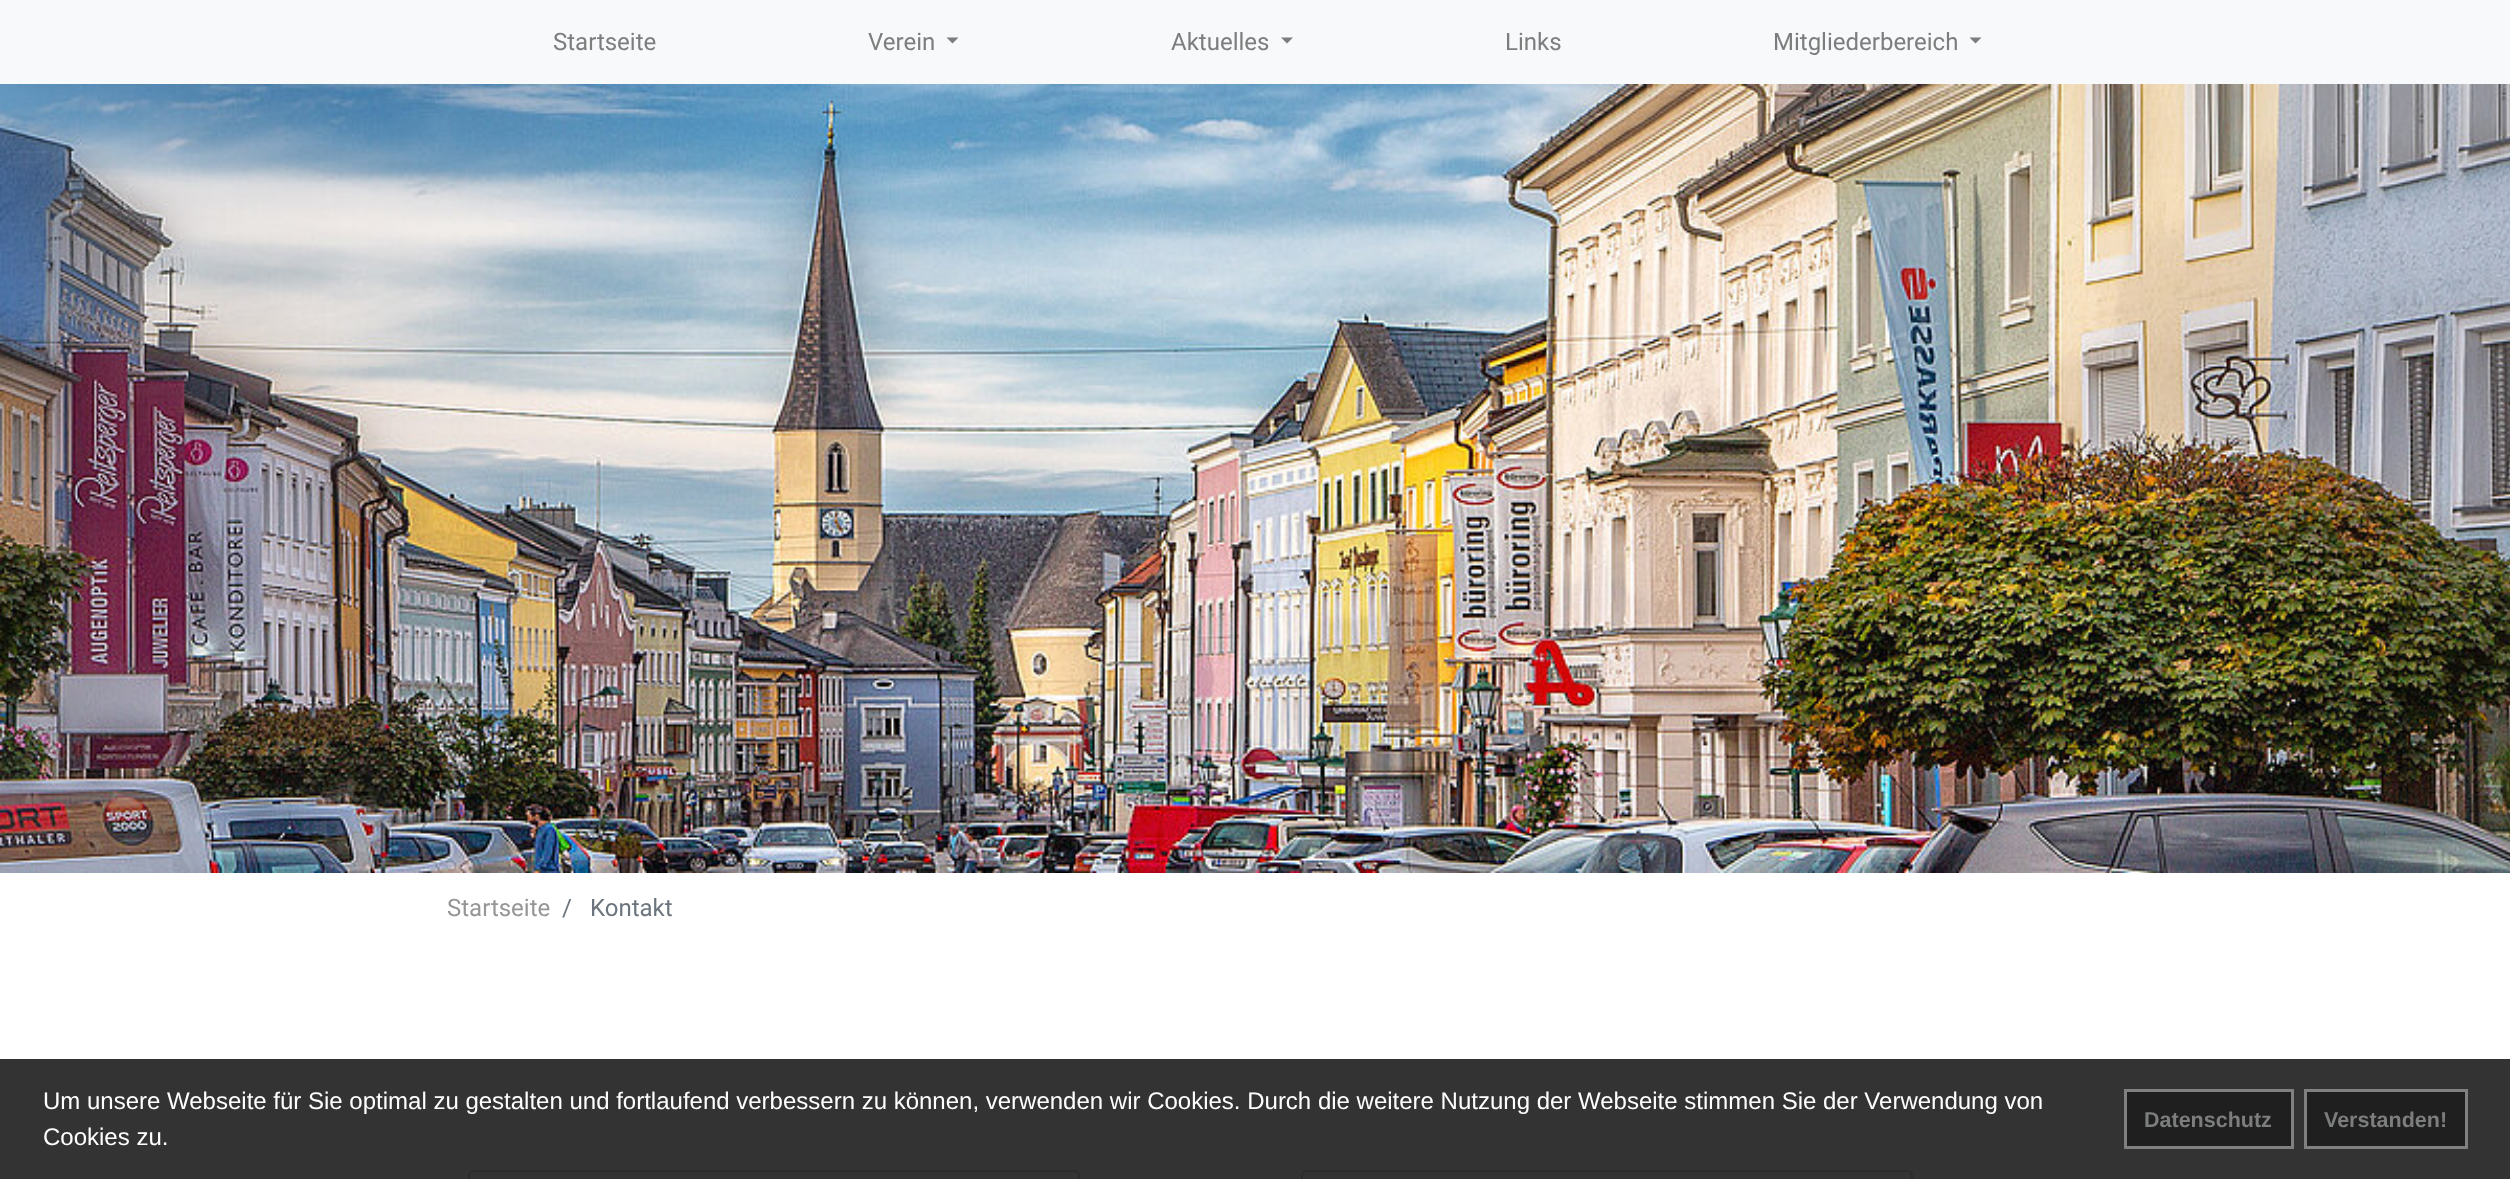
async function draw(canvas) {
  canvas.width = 2510;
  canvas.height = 1179;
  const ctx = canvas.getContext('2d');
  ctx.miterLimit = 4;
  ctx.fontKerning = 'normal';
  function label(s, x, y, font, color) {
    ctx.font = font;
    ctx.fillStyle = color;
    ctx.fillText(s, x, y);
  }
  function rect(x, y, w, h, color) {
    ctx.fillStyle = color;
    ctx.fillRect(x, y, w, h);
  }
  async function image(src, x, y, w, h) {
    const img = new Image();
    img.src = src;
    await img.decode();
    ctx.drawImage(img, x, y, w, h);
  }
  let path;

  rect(0, 0, 2510, 1179, '#fff');
  rect(0, 0, 2510, 84, '#f8f9fa');
  label('Startseite', 553, 50, '24px Roboto', '#7c7d7d');
  label('Verein', 868, 50, '24px Roboto', '#7c7d7d');
  path = new Path2D('M946.5 37.5H958.5L952.5 43.5Z');
  ctx.fill(path);
  label('Aktuelles', 1171, 50, '24px Roboto', '#7c7d7d');
  path = new Path2D('M1281 37.5H1293L1287 43.5Z');
  ctx.fill(path);
  label('Links', 1505, 50, '24px Roboto', '#7c7d7d');
  label('Mitgliederbereich', 1773, 50, '24px Roboto', '#7c7d7d');
  path = new Path2D('M1969.5 37.5H1981.5L1975.5 43.5Z');
  ctx.fill(path);
  await image('assets/img1.png', 0, 84, 2510, 789);
  label('Startseite', 447, 916, '24px Roboto', '#969696');
  label('/', 562, 916, '24px Roboto', '#6c757d');
  label('Kontakt', 590, 916, '24px Roboto', '#6c757d');
  ctx.beginPath();
  ctx.roundRect(469, 1171, 610, 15, 5);
  ctx.strokeStyle = '#ced4da';
  ctx.lineWidth = 2;
  ctx.stroke();
  ctx.beginPath();
  ctx.roundRect(1302, 1171, 610, 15, 5);
  ctx.stroke();
  rect(0, 1059, 2510, 120, '#000000cc');
  label('Um unsere Webseite für Sie optimal zu gestalten und fortlaufend verbessern zu können, verwenden wir Cookies. Durch die weitere Nutzung der Webseite stimmen Sie der Verwendung von', 43, 1109, '24px Liberation Sans', '#fff');
  label('Cookies zu.', 43, 1145, '24px Liberation Sans', '#fff');
  ctx.fillStyle = '#1f1f1f';
  ctx.beginPath();
  ctx.rect(2125.5, 1090.5, 167, 57);
  ctx.fill();
  ctx.strokeStyle = '#808080';
  ctx.lineWidth = 3;
  ctx.stroke();
  label('Datenschutz', 2144, 1127, 'bold 21.5px Liberation Sans', '#7c7d7d');
  ctx.fillStyle = '#1f1f1f';
  ctx.beginPath();
  ctx.rect(2305.5, 1090.5, 161, 57);
  ctx.fill();
  ctx.stroke();
  label('Verstanden!', 2324, 1127, 'bold 21.5px Liberation Sans', '#7c7d7d');
}

draw(document.querySelector('canvas'));
